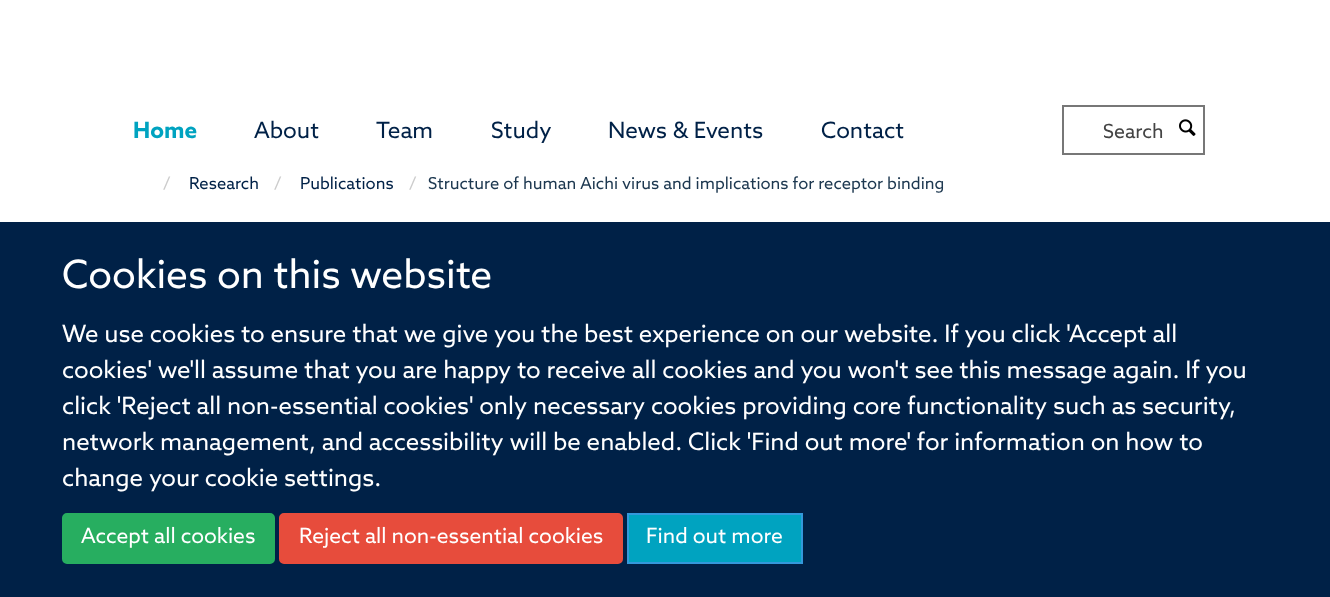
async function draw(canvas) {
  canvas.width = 1330;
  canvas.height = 597;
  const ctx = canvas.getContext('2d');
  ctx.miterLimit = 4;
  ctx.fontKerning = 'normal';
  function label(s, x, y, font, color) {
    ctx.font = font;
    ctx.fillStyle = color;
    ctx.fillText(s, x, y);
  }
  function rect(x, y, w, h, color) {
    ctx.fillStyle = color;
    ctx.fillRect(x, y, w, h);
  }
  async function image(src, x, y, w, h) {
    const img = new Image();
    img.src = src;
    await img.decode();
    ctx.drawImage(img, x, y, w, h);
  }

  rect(0, 0, 1330, 597, '#fff');
  label('Home', 133, 138, 'bold 22.5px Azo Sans', '#00a3c0');
  label('About', 254, 138, '22.5px Azo Sans', '#002147');
  label('Team', 376, 138, '22.5px Azo Sans', '#002147');
  label('Study', 491, 138, '22.5px Azo Sans', '#002147');
  label('News & Events', 608, 138, '22.5px Azo Sans', '#002147');
  label('Contact', 821, 138, '22.5px Azo Sans', '#002147');
  ctx.strokeStyle = '#777';
  ctx.lineWidth = 2;
  ctx.strokeRect(1063, 106, 141, 48);
  label('Search', 1103, 138, '19.5px Azo Sans', '#444');
  await image('assets/img1.png', 1179, 119, 17, 17);
  label('/', 163, 189, '16.5px Azo Sans', '#ccc');
  label('Research', 189, 189, '16.5px Azo Sans', '#002147');
  label('/', 274, 189, '16.5px Azo Sans', '#ccc');
  label('Publications', 300, 189, '16.5px Azo Sans', '#002147');
  label('/', 409, 189, '16.5px Azo Sans', '#ccc');
  label('Structure of human Aichi virus and implications for receptor binding', 428, 189, '16.5px Azo Sans', '#1d3850');
  rect(0, 222, 1330, 375, '#002147');
  label('Cookies on this website', 62, 288, '39px Azo Sans', '#fff');
  label('We use cookies to ensure that we give you the best experience on our website. If you click \'Accept all', 62, 342, '24px Azo Sans', '#fff');
  label('cookies\' we\'ll assume that you are happy to receive all cookies and you won\'t see this message again. If you', 62, 378, '24px Azo Sans', '#fff');
  label('click \'Reject all non-essential cookies\' only necessary cookies providing core functionality such as security,', 62, 414, '24px Azo Sans', '#fff');
  label('network management, and accessibility will be enabled. Click \'Find out more\' for information on how to', 62, 450, '24px Azo Sans', '#fff');
  label('change your cookie settings.', 62, 486, '24px Azo Sans', '#fff');
  ctx.fillStyle = '#27ae60';
  ctx.beginPath();
  ctx.roundRect(63, 514, 211, 49, 4);
  ctx.fill();
  ctx.strokeStyle = '#27ae60';
  ctx.stroke();
  label('Accept all cookies', 81, 543, '21px Azo Sans', '#fff');
  ctx.fillStyle = '#e74c3c';
  ctx.beginPath();
  ctx.roundRect(280, 514, 342, 49, 4);
  ctx.fill();
  ctx.strokeStyle = '#e74c3c';
  ctx.stroke();
  label('Reject all non-essential cookies', 299, 543, '21px Azo Sans', '#fff');
  ctx.fillStyle = '#00a3c0';
  ctx.beginPath();
  ctx.rect(628, 514, 174, 49);
  ctx.fill();
  ctx.strokeStyle = '#3498db';
  ctx.stroke();
  label('Find out more', 646, 543, '21px Azo Sans', '#fff');
}

draw(document.querySelector('canvas'));
